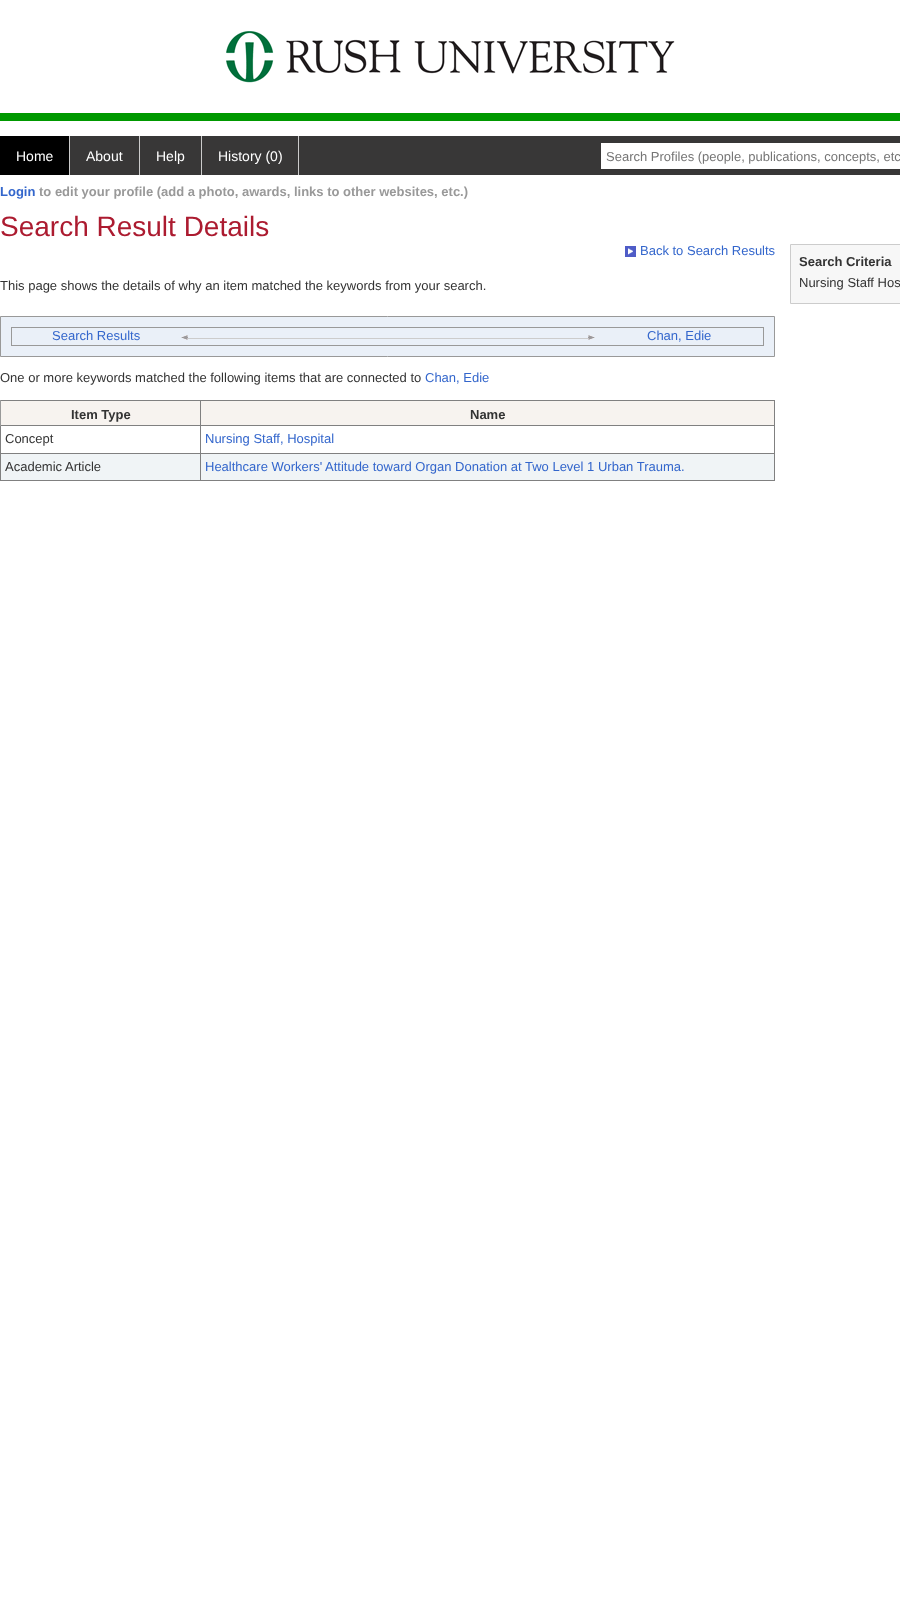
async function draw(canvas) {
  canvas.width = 900;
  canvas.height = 1622;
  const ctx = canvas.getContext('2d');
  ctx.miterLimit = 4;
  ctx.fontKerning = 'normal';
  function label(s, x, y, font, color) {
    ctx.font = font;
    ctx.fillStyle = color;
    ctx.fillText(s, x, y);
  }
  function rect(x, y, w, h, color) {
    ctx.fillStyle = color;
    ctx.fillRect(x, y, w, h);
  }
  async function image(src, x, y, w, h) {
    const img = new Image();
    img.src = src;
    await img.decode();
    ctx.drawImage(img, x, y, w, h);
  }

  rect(0, 0, 900, 1622, '#fff');
  rect(0, 113, 900, 8, '#090');
  await image('assets/img1.png', 226, 31, 449, 52);
  rect(70, 136, 830, 39, '#383737');
  rect(0, 136, 69, 39, '#000');
  rect(69, 136, 1, 39, '#ccc');
  label('Home', 16, 161, '14px Liberation Sans', '#fff');
  rect(139, 136, 1, 39, '#ccc');
  label('About', 86, 161, '14px Liberation Sans', '#fff');
  rect(201, 136, 1, 39, '#ccc');
  label('Help', 156, 161, '14px Liberation Sans', '#fff');
  rect(298, 136, 1, 39, '#ccc');
  label('History (0)', 218, 161, '14px Liberation Sans', '#fff');
  rect(601, 143, 299, 26, '#fff');
  label('Search Profiles (people, publications, concepts, etc', 606, 161, '13px Liberation Sans', '#757575');
  label('Login', 0, 196, 'bold 13px Liberation Sans', '#36c');
  label('to edit your profile (add a photo, awards, links to other websites, etc.)', 39, 196, 'bold 13px Liberation Sans', '#999');
  label('Search Result Details', 0, 236, '28px Liberation Sans', '#ac1b30');
  await image('assets/img2.png', 625, 246, 11, 11);
  label('Back to Search Results', 640, 255, '13px Liberation Sans', '#36c');
  label('This page shows the details of why an item matched the keywords from your search.', 0, 290, '13px Liberation Sans', '#333');
  ctx.fillStyle = '#eaf0f8';
  ctx.beginPath();
  ctx.rect(0.5, 316.5, 774, 40);
  ctx.fill();
  ctx.strokeStyle = '#999';
  ctx.stroke();
  ctx.strokeRect(11.5, 327.5, 752, 18);
  label('Search Results', 52, 340, '13px Liberation Sans', '#36c');
  await image('assets/img3.png', 181, 335, 7, 5);
  rect(188, 338, 400, 1, '#ccc');
  await image('assets/img4.png', 588, 335, 7, 5);
  label('Chan, Edie', 647, 340, '13px Liberation Sans', '#36c');
  label('One or more keywords matched the following items that are connected to', 0, 382, '13px Liberation Sans', '#333');
  label('Chan, Edie', 425, 382, '13px Liberation Sans', '#36c');
  rect(0, 400, 775, 1, '#808080');
  rect(774, 400, 1, 25, '#808080');
  rect(1, 401, 199, 24, '#f7f3ef');
  rect(200, 425, 575, 1, '#808080');
  rect(200, 453, 575, 1, '#808080');
  rect(1, 454, 773, 26, '#f0f4f6');
  rect(774, 453, 1, 28, '#808080');
  rect(200, 480, 575, 1, '#808080');
  rect(200, 453, 1, 28, '#808080');
  rect(0, 453, 201, 1, '#808080');
  rect(200, 425, 1, 29, '#808080');
  rect(0, 425, 201, 1, '#808080');
  rect(200, 400, 1, 26, '#808080');
  rect(0, 480, 201, 1, '#808080');
  rect(0, 453, 1, 28, '#808080');
  rect(0, 425, 1, 29, '#808080');
  rect(0, 400, 1, 26, '#999');
  label('Item Type', 71, 419, 'bold 13px Liberation Sans', '#333');
  rect(201, 401, 573, 24, '#f7f3ef');
  label('Name', 470, 419, 'bold 13px Liberation Sans', '#333');
  label('Concept', 5, 443, '13px Liberation Sans', '#333');
  rect(774, 425, 1, 29, '#808080');
  label('Nursing Staff, Hospital', 205, 443, '13px Liberation Sans', '#36c');
  label('Academic Article', 5, 471, '13px Liberation Sans', '#333');
  label('Healthcare Workers\' Attitude toward Organ Donation at Two Level 1 Urban Trauma.', 205, 471, '13px Liberation Sans', '#36c');
  ctx.fillStyle = '#f7f7f7';
  ctx.beginPath();
  ctx.rect(790.5, 244.5, 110, 59);
  ctx.fill();
  ctx.strokeStyle = '#ccc';
  ctx.stroke();
  label('Search Criteria', 799, 266, 'bold 13px Liberation Sans', '#333');
  label('Nursing Staff Hos', 799, 287, '13px Liberation Sans', '#333');
}

draw(document.querySelector('canvas'));
